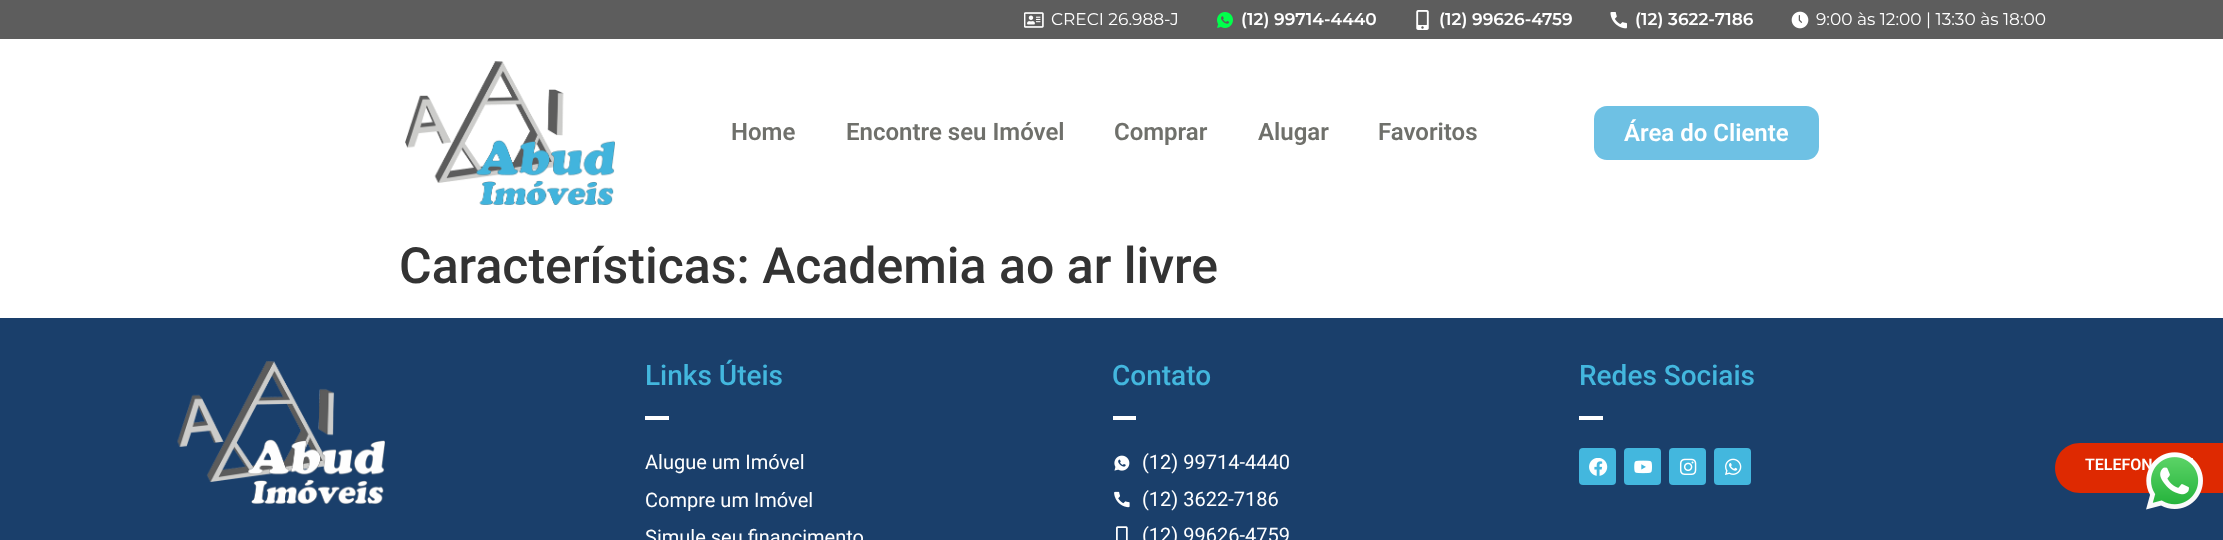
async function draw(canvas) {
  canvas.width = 2223;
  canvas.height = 540;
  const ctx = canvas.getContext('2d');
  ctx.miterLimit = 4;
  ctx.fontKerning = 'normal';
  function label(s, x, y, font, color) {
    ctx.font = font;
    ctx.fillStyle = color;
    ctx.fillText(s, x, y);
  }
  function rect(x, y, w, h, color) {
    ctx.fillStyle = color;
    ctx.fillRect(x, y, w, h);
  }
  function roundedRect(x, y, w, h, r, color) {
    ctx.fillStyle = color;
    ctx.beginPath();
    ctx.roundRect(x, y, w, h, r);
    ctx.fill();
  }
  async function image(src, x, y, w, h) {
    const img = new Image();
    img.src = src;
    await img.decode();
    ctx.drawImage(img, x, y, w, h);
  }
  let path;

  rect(0, 0, 2223, 540, '#fff');
  rect(0, 0, 2223, 39, '#5d5d5d');
  await image('assets/img1.png', 1024, 12, 20, 16);
  label('CRECI 26.988-J', 1051, 25, '17px Montserrat', '#fff');
  await image('assets/img2.png', 1217, 12, 16, 16);
  label('(12) 99714-4440', 1241, 25, '600 17px Montserrat', '#fff');
  await image('assets/img3.png', 1416, 10, 13, 20);
  label('(12) 99626-4759', 1439, 25, '600 17px Montserrat', '#fff');
  await image('assets/img4.png', 1610, 12, 17, 17);
  label('(12) 3622-7186', 1635, 25, '600 17px Montserrat', '#fff');
  await image('assets/img5.png', 1791, 11, 18, 18);
  label('9:00 às 12:00 | 13:30 às 18:00', 1816, 25, '17px Montserrat', '#fff');
  await image('assets/img6.png', 405, 61, 210, 144);
  label('Home', 731, 140, '600 24px Roboto', '#6f706b');
  label('Encontre seu Imóvel', 846, 140, '600 24px Roboto', '#6f706b');
  label('Comprar', 1114, 140, '600 24px Roboto', '#6f706b');
  label('Alugar', 1258, 140, '600 24px Roboto', '#6f706b');
  label('Favoritos', 1378, 140, '600 24px Roboto', '#6f706b');
  roundedRect(1594, 106, 225, 54, 13, '#6ec1e4');
  label('Área do Cliente', 1624, 141, '600 24px Roboto', '#fff');
  rect(0, 318, 2223, 222, '#1a3f6b');
  ctx.fillStyle = '#de2901';
  path = new Path2D('M2080 443H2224V493H2080C2066 493 2055 482 2055 468C2055 454 2066 443 2080 443Z');
  ctx.fill(path);
  label('TELEFON', 2085, 470, '600 16px Roboto', '#fff');
  await image('assets/img7.png', 2191, 458, 2, 2);
  label('Características: Academia ao ar livre', 399, 283, '500 50px Roboto', '#333');
  await image('assets/img8.png', 177, 361, 208, 143);
  label('Links Úteis', 645, 385, '500 28px Roboto', '#43b7de');
  rect(645, 416, 24, 4, '#fff');
  label('Alugue um Imóvel', 645, 469, '20px Roboto', '#fff');
  label('Compre um Imóvel', 645, 507, '20px Roboto', '#fff');
  label('Simule seu financimento', 645, 544, '20px Roboto', '#fff');
  label('Contato', 1112, 385, '500 28px Roboto', '#43b7de');
  rect(1113, 416, 23, 4, '#fff');
  await image('assets/img9.png', 1114, 455, 16, 16);
  label('(12) 99714-4440', 1142, 469, '20px Roboto', '#fff');
  await image('assets/img10.png', 1114, 491, 16, 17);
  label('(12) 3622-7186', 1142, 506, '20px Roboto', '#fff');
  await image('assets/img11.png', 1116, 526, 12, 14);
  label('(12) 99626-4759', 1142, 542, '20px Roboto', '#fff');
  label('Redes Sociais', 1579, 385, '500 28px Roboto', '#43b7de');
  rect(1579, 416, 24, 4, '#fff');
  roundedRect(1579, 448, 37, 37, 4, '#43b7de');
  await image('assets/img12.png', 1589, 458, 19, 18);
  roundedRect(1624, 448, 37, 37, 4, '#43b7de');
  await image('assets/img13.png', 1634, 460, 18, 14);
  roundedRect(1669, 448, 37, 37, 4, '#43b7de');
  await image('assets/img14.png', 1679, 458, 18, 17);
  roundedRect(1714, 448, 37, 37, 4, '#43b7de');
  await image('assets/img15.png', 1725, 458, 17, 17);
  await image('assets/img16.png', 2146, 452, 57, 58);
}

draw(document.querySelector('canvas'));
